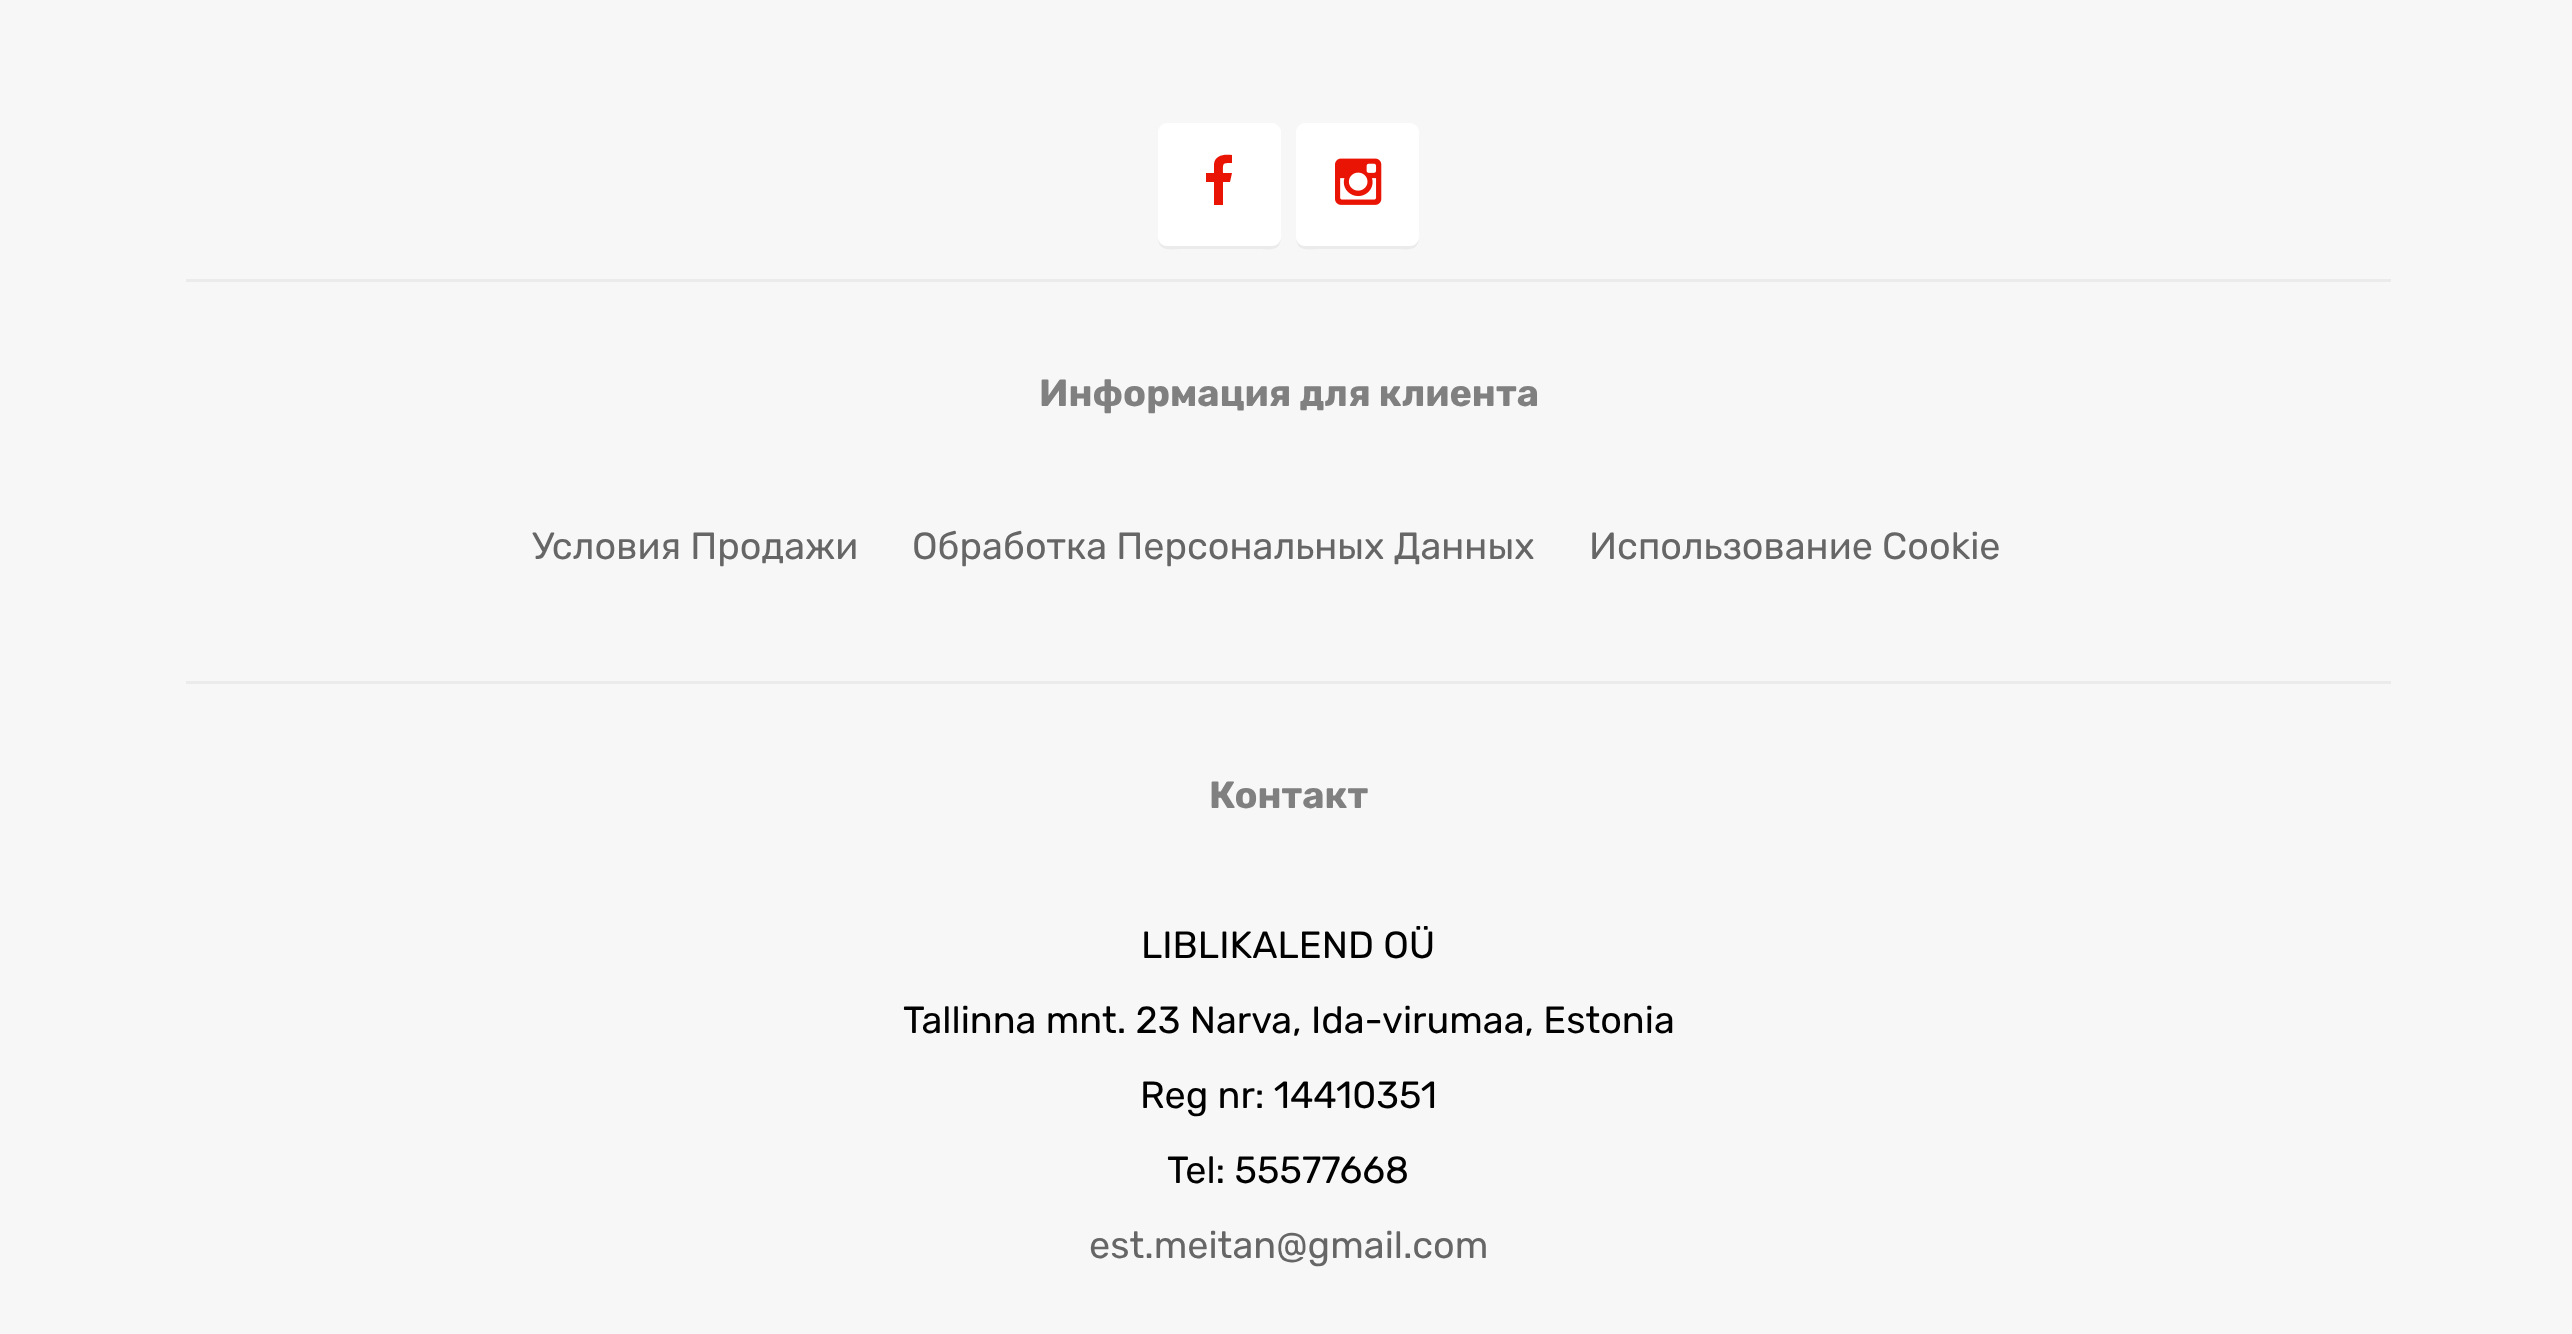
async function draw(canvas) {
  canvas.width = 2572;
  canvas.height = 1334;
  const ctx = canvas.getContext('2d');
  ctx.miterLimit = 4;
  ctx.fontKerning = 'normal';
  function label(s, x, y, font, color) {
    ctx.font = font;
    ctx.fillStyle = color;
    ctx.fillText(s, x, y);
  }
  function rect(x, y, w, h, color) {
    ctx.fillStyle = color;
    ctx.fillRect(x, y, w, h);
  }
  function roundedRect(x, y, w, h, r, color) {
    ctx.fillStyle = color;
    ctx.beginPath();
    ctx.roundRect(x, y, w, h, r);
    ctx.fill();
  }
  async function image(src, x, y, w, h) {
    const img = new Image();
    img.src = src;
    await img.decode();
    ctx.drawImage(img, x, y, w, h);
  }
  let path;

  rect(0, 0, 2572, 1334, '#f7f7f7');
  ctx.fillStyle = '#ebebeb';
  path = new Path2D('M1158 237C1158 253 1171 249 1184 249H1254C1268 249 1281 253 1281 237C1281 242 1277 246 1272 246H1167C1162 246 1158 242 1158 237Z');
  ctx.fill(path);
  roundedRect(1158, 123, 123, 123, 9, '#fff');
  ctx.fillStyle = '#ea1404';
  path = new Path2D('M1232 155V163C1222 163 1223 163 1223 173H1232L1230 182H1223V205H1214V182H1206V173H1214V164C1215 155 1224 154 1232 155Z');
  ctx.fill(path);
  ctx.fillStyle = '#ebebeb';
  path = new Path2D('M1296 237C1296 253 1309 249 1322 249H1392C1406 249 1419 253 1419 237C1419 242 1415 246 1410 246H1305C1300 246 1296 242 1296 237Z');
  ctx.fill(path);
  roundedRect(1296, 123, 123, 123, 9, '#fff');
  await image('assets/img1.png', 1335, 158, 47, 47);
  rect(186, 279, 2205, 3, '#ebebeb');
  label('Информация для клиента', 1039, 406, 'bold 37.8px Rubik', '#808080');
  label('Условия Продажи', 532, 559, '37.8px Rubik', '#666');
  label('Обработка Персональных Данных', 912, 559, '37.8px Rubik', '#666');
  label('Использование Cookie', 1589, 559, '37.8px Rubik', '#666');
  rect(186, 681, 2205, 3, '#ebebeb');
  label('Контакт', 1209, 808, 'bold 37.8px Rubik', '#808080');
  label('LIBLIKALEND OÜ', 1141, 958, '37.8px Rubik', '#000');
  label('Tallinna mnt. 23 Narva, Ida-virumaa, Estonia', 903, 1033, '37.8px Rubik', '#000');
  label('Reg nr: 14410351', 1140, 1108, '37.8px Rubik', '#000');
  label('Tel: 55577668', 1167, 1183, '37.8px Rubik', '#000');
  label('est.meitan@gmail.com', 1089, 1258, '37.8px Rubik', '#666');
}

draw(document.querySelector('canvas'));
